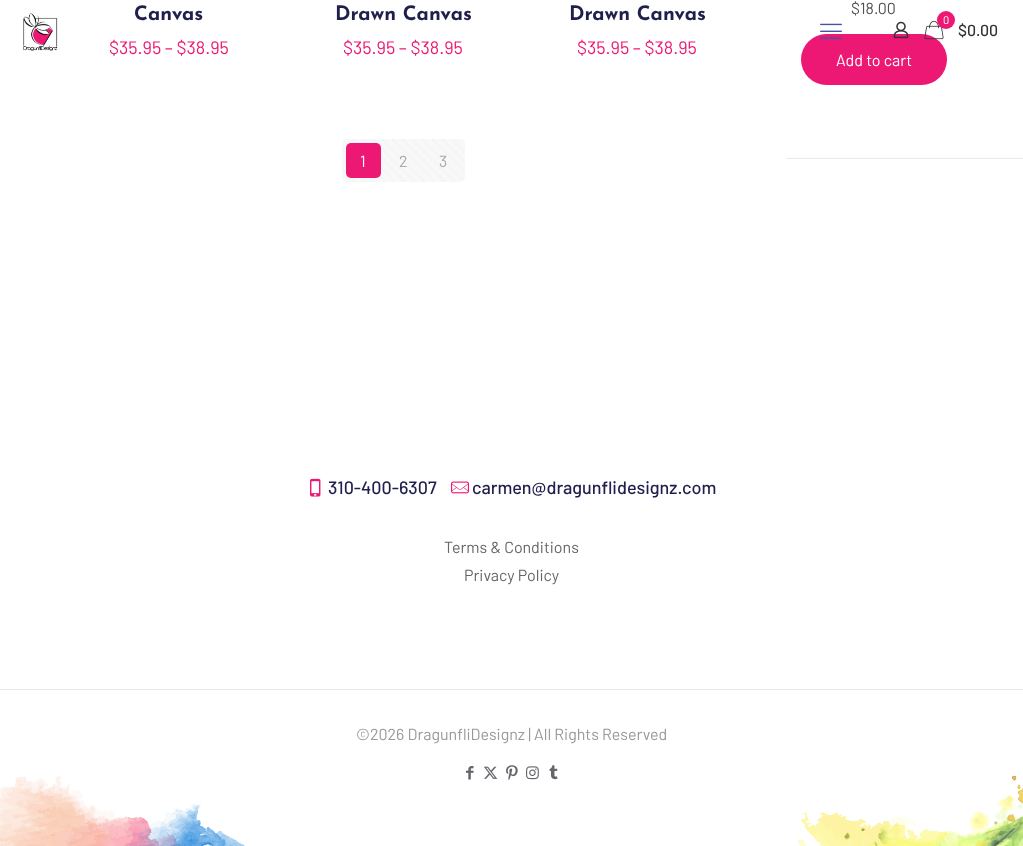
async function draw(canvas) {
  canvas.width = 1023;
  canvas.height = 846;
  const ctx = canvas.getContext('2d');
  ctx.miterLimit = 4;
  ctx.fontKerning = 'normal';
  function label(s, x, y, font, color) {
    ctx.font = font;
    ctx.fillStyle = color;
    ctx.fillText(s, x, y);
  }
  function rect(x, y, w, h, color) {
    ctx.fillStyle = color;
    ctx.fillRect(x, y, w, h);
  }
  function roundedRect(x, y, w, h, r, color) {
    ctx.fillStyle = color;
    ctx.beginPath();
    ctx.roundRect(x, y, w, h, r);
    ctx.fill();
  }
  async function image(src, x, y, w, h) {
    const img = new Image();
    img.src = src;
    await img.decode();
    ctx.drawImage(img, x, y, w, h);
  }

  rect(0, 0, 1023, 846, '#fff');
  label('Canvas', 134, 20, 'bold 20px Josefin Sans', '#1f1f4d');
  label('$35.95 – $38.95', 109, 54, '18px Barlow', '#ed1873');
  label('Drawn Canvas', 335, 20, 'bold 20px Josefin Sans', '#1f1f4d');
  label('$35.95 – $38.95', 343, 54, '18px Barlow', '#ed1873');
  label('Drawn Canvas', 569, 20, 'bold 20px Josefin Sans', '#1f1f4d');
  label('$35.95 – $38.95', 577, 54, '18px Barlow', '#ed1873');
  roundedRect(342, 139, 123, 43, 5, '#f8f8f8');
  await image('assets/img1.png', 342, 139, 123, 43);
  roundedRect(346, 143, 35, 35, 5, '#ed1873');
  label('1', 360, 167, '16px Barlow', '#fff');
  label('2', 399, 167, '16px Barlow', '#a8a8a8');
  label('3', 439, 167, '16px Barlow', '#a8a8a8');
  label('$18.00', 851, 14, '16px Barlow', '#505050');
  roundedRect(801, 34, 146, 51, 25.5, '#ed1873');
  label('Add to cart', 836, 66, '16px Barlow', '#fff');
  rect(786, 158, 237, 1, '#ebebeb');
  await image('assets/img2.png', 0, 775, 1023, 71);
  await image('assets/img3.png', 310, 478, 11, 19);
  label('310-400-6307', 328, 494, '500 18px Barlow', '#1f1f4d');
  await image('assets/img4.png', 451, 481, 18, 13);
  label('carmen@dragunflidesignz.com', 472, 494, '500 18px Barlow', '#1f1f4d');
  label('Terms & Conditions', 444, 553, '16px Barlow', '#666');
  label('Privacy Policy', 464, 581, '16px Barlow', '#666');
  rect(0, 689, 1023, 1, '#e6e6e6');
  label('©2026 DragunfliDesignz | All Rights Reserved', 356, 740, '16px Barlow', '#999');
  await image('assets/img5.png', 466, 766, 8, 14);
  await image('assets/img6.png', 483, 766, 15, 13);
  await image('assets/img7.png', 506, 765, 12, 16);
  await image('assets/img8.png', 526, 766, 13, 14);
  await image('assets/img9.png', 549, 765, 9, 15);
  await image('assets/img10.png', 23, 12, 35, 39);
  await image('assets/img11.png', 820, 23, 22, 16);
  await image('assets/img12.png', 893, 21, 16, 18);
  await image('assets/img13.png', 924, 20, 20, 20);
  ctx.fillStyle = '#ed1873';
  ctx.beginPath();
  ctx.arc(946, 20, 9, 0, 2 * Math.PI);
  ctx.fill();
  label('0', 943, 24, '11px Barlow', '#fff');
  label('$0.00', 958, 36, '500 16px Barlow', '#333');
}

draw(document.querySelector('canvas'));
